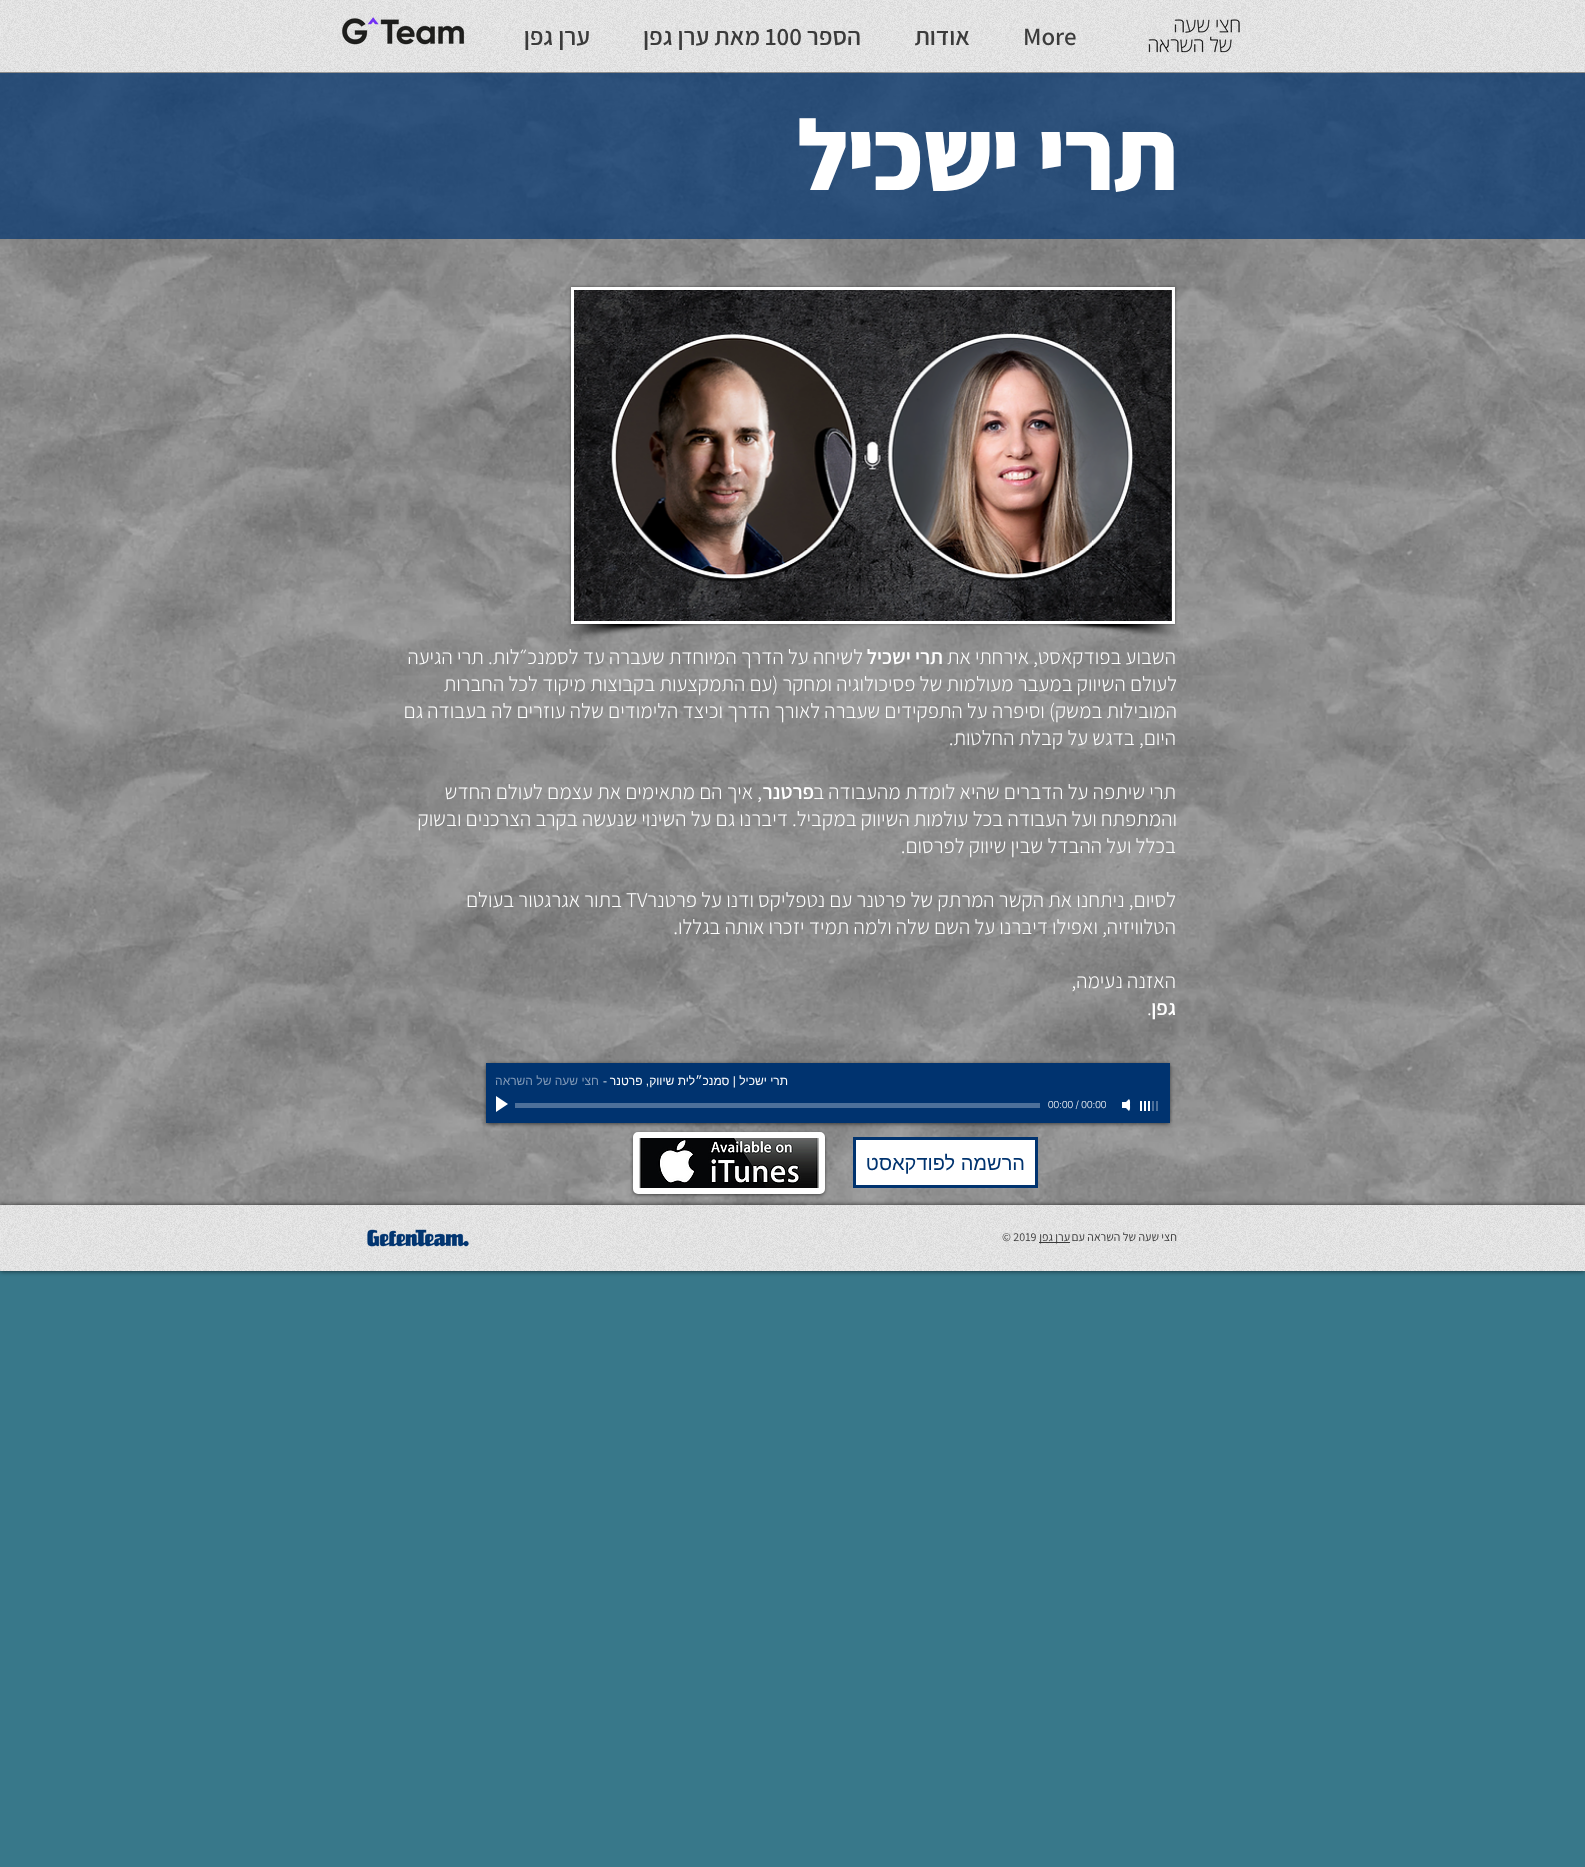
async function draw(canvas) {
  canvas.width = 1585;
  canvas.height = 1867;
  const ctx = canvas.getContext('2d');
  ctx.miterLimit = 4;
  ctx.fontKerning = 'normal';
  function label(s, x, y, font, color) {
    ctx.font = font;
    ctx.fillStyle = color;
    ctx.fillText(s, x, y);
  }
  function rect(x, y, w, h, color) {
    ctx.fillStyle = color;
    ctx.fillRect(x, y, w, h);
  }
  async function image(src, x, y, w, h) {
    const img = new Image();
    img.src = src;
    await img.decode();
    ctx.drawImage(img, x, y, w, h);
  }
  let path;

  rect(0, 0, 1585, 1867, '#38788a');
  rect(0, 0, 1585, 72, '#e9e9e9');
  await image('assets/img1.png', 0, 0, 1585, 72);
  await image('assets/img2.png', 1148, 19, 92, 34);
  label('More', 1023, 45, '600 25px Assistant', '#3b3b3b');
  ctx.direction = 'rtl';
  label('אודות', 970, 45, '600 25px Assistant', '#3b3b3b');
  label('הספר', 861, 45, '600 25px Assistant', '#3b3b3b');
  ctx.direction = 'ltr';
  label('100', 765, 45, '600 25px Assistant', '#3b3b3b');
  ctx.direction = 'rtl';
  label('מאת ערן גפן', 760, 45, '600 25px Assistant', '#3b3b3b');
  label('ערן גפן', 590, 45, '600 25px Assistant', '#3b3b3b');
  await image('assets/img3.png', 342, 17, 123, 28);
  await image('assets/img4.png', 0, 72, 1585, 1133);
  rect(0, 73, 1585, 166, '#00336fb3');
  ctx.letterSpacing = '-1px';
  label('תרי ישכיל', 1177, 190, '800 100px Assistant', '#fff');
  ctx.fillStyle = '#00000080';
  ctx.filter = 'blur(1.5px)';
  ctx.beginPath();
  ctx.rect(571, 287, 604, 337);
  ctx.fill();
  ctx.filter = 'none';
  rect(571, 287, 604, 337, '#fff');
  await image('assets/img5.png', 574, 290, 598, 331);
  await image('assets/img6.png', 1038, 624, 145, 17);
  await image('assets/img7.png', 564, 624, 144, 17);
  ctx.letterSpacing = '0px';
  label('השבוע בפודקאסט, אירחתי את', 1176, 664, '300 21px Assistant', '#fff');
  label('תרי ישכיל', 943, 664, '600 21px Assistant', '#fff');
  label('לשיחה על הדרך המיוחדת שעברה עד לסמנכ״לות. תרי הגיעה', 863, 664, '300 21px Assistant', '#fff');
  label('לעולם השיווק במעבר מעולמות של פסיכולוגיה ומחקר (עם התמקצעות בקבוצות מיקוד לכל החברות', 1177, 691, '300 21px Assistant', '#fff');
  label('המובילות במשק) וסיפרה על התפקידים שעברה לאורך הדרך וכיצד הלימודים שלה עוזרים לה בעבודה גם', 1177, 718, '300 21px Assistant', '#fff');
  label('היום, בדגש על קבלת החלטות.', 1176, 745, '300 21px Assistant', '#fff');
  label('תרי שיתפה על הדברים שהיא לומדת מהעבודה ב', 1176, 799, '300 21px Assistant', '#fff');
  label('פרטנר', 814, 799, '600 21px Assistant', '#fff');
  label(', איך הם מתאימים את עצמם לעולם החדש', 762, 799, '300 21px Assistant', '#fff');
  label('והמתפתח ועל העבודה בכל עולמות השיווק במקביל. דיברנו גם על השינוי שנעשה בקרב הצרכנים ובשוק', 1177, 826, '300 21px Assistant', '#fff');
  label('בכלל ועל ההבדל שבין שיווק לפרסום.', 1176, 853, '300 21px Assistant', '#fff');
  label('לסיום, ניתחנו את הקשר המרתק של פרטנר עם נטפליקס ודנו על פרטנר', 1176, 907, '300 21px Assistant', '#fff');
  ctx.direction = 'ltr';
  label('TV', 626, 907, '300 21px Assistant', '#fff');
  ctx.direction = 'rtl';
  label('בתור אגרגטור בעולם', 622, 907, '300 21px Assistant', '#fff');
  label('הטלוויזיה, ואפילו דיברנו על השם שלה ולמה תמיד יזכרו אותה בגללו.', 1176, 934, '300 21px Assistant', '#fff');
  label('האזנה נעימה,', 1176, 988, '300 21px Assistant', '#fff');
  label('גפן', 1176, 1015, '600 21px Assistant', '#fff');
  ctx.direction = 'ltr';
  label('.', 1147, 1015, '300 21px Assistant', '#fff');
  ctx.fillStyle = '#00000099';
  ctx.filter = 'blur(2px)';
  ctx.beginPath();
  ctx.rect(486, 1064, 684, 60);
  ctx.fill();
  ctx.filter = 'none';
  rect(486, 1063, 684, 60, '#00336f');
  ctx.direction = 'rtl';
  label('תרי ישכיל | סמנכ״לית שיווק, פרטנר', 788, 1085, '12px Liberation Sans', '#fff');
  ctx.direction = 'ltr';
  label('-', 603, 1085, '300 12px helvetica', '#fff');
  ctx.direction = 'rtl';
  label('חצי שעה של השראה', 599, 1085, '12px Liberation Sans', '#8099b7');
  rect(1156, 1101, 2, 10, '#4d709a');
  rect(1152, 1101, 2, 10, '#4d709a');
  rect(1148, 1101, 2, 10, '#fff');
  rect(1144, 1101, 2, 10, '#fff');
  rect(1140, 1101, 2, 10, '#fff');
  path = new Path2D('M1123 1105L1129 1111C1130.5 1109.5 1130 1107 1130 1105C1130 1103 1130.5 1100.5 1129 1099Z');
  ctx.fill(path);
  rect(1122, 1102, 4, 6, '#fff');
  ctx.direction = 'ltr';
  label('00:00 / 00:00', 1048, 1108, '300 10px helvetica', '#fff');
  rect(515, 1103, 525, 5, '#4d709a');
  ctx.fillStyle = '#fff';
  path = new Path2D('M496 1112V1096L508 1104Z');
  ctx.fill(path);
  ctx.beginPath();
  ctx.rect(854.5, 1138.5, 182, 48);
  ctx.fill();
  ctx.strokeStyle = '#00336f';
  ctx.lineWidth = 3;
  ctx.stroke();
  ctx.direction = 'rtl';
  label('הרשמה לפודקאסט', 1025, 1170, '20px Liberation Sans', '#00336f');
  ctx.fillStyle = '#00000080';
  ctx.filter = 'blur(1.5px)';
  ctx.beginPath();
  ctx.roundRect(633, 1133, 192, 62, 5);
  ctx.fill();
  ctx.filter = 'none';
  ctx.beginPath();
  ctx.roundRect(636, 1135, 186, 56, 2);
  ctx.strokeStyle = '#fff';
  ctx.lineWidth = 6;
  ctx.stroke();
  await image('assets/img8.png', 639, 1138, 180, 50);
  ctx.fillStyle = '#000000b3';
  ctx.filter = 'blur(2.5px)';
  ctx.beginPath();
  ctx.rect(0, 1205, 1585, 66);
  ctx.fill();
  ctx.filter = 'none';
  rect(0, 1205, 1585, 66, '#e9e9e9');
  await image('assets/img9.png', 0, 1205, 1585, 66);
  label('חצי שעה של השראה עם', 1177, 1241, '12px Assistant', '#3b3b3b');
  rect(1039, 1242, 31, 1, '#3b3b3b');
  label('ערן גפן', 1070, 1241, '12px Assistant', '#3b3b3b');
  ctx.direction = 'ltr';
  label('© 2019', 1002, 1241, '12px Assistant', '#3b3b3b');
  await image('assets/img10.png', 367, 1229, 102, 18);
}

draw(document.querySelector('canvas'));
